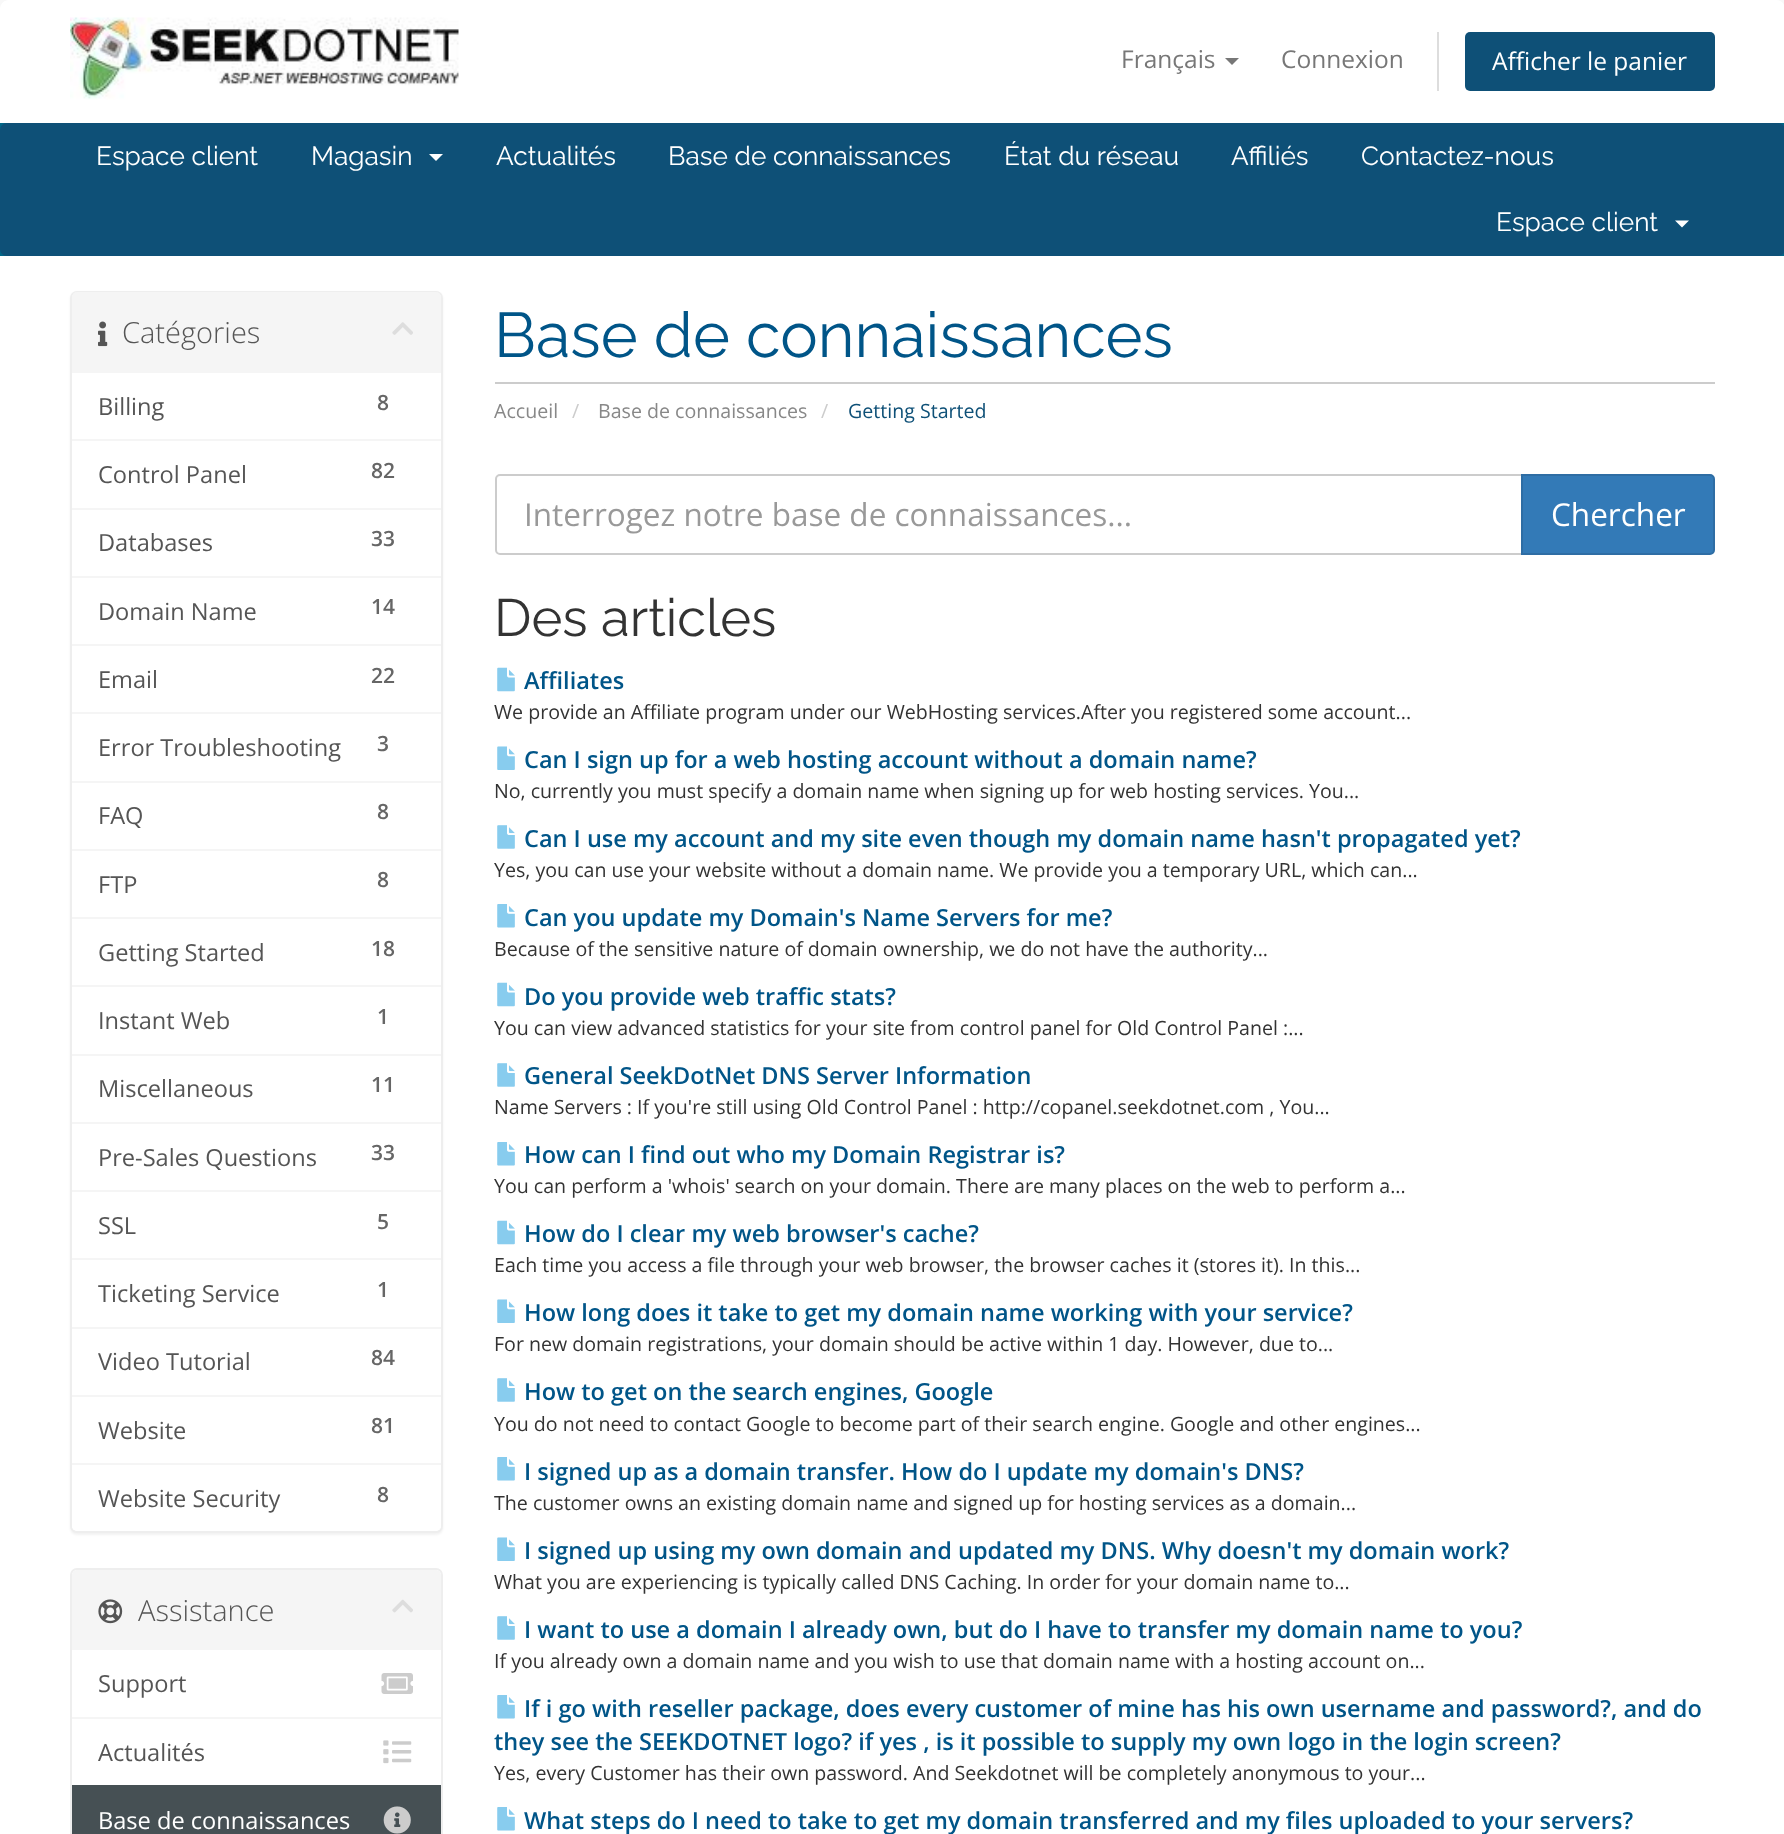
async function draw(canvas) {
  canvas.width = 1784;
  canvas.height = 1834;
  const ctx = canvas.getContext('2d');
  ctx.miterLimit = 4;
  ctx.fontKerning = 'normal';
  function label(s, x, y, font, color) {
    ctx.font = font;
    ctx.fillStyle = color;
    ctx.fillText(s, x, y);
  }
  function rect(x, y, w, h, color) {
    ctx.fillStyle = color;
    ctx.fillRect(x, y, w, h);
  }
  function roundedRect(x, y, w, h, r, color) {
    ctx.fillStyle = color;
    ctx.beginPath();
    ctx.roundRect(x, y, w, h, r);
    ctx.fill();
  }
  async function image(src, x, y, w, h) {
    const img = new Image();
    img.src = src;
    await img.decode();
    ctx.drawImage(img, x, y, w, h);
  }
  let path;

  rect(0, 0, 1784, 1834, '#f8f8f8');
  ctx.fillStyle = '#fff';
  path = new Path2D('M9 0H1776C1781 0 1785 4 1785 9V123H0V9C0 4 4 0 9 0Z');
  ctx.fill(path);
  await image('assets/img1.png', 70, 17, 389, 83);
  label('Français', 1121, 68, '24.5px Open Sans', '#777');
  path = new Path2D('M1225 58H1239L1232 65Z');
  ctx.fill(path);
  label('Connexion', 1281, 68, '24.5px Open Sans', '#777');
  rect(1437, 32, 2, 59, '#ddd');
  roundedRect(1465, 32, 250, 59, 5, '#0e5077');
  label('Afficher le panier', 1492, 70, '24.5px Open Sans', '#fff');
  rect(0, 123, 1784, 133, '#006687');
  roundedRect(0, 123, 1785, 133, 7, '#0e5077');
  label('Espace client', 96, 165, '26.25px Raleway', '#fff');
  label('Magasin', 311, 165, '26.25px Raleway', '#fff');
  path = new Path2D('M429 154H443L436 161Z');
  ctx.fill(path);
  label('Actualités', 496, 165, '26.25px Raleway', '#fff');
  label('Base de connaissances', 668, 165, '26.25px Raleway', '#fff');
  label('État du réseau', 1004, 165, '26.25px Raleway', '#fff');
  label('Affiliés', 1231, 165, '26.25px Raleway', '#fff');
  label('Contactez-nous', 1361, 165, '26.25px Raleway', '#fff');
  label('Espace client', 1496, 231, '26.25px Raleway', '#fff');
  path = new Path2D('M1675 220.5H1689L1682 227.5Z');
  ctx.fill(path);
  rect(0, 256, 1784, 1578, '#fff');
  ctx.fillStyle = '#0000000d';
  ctx.filter = 'blur(1px)';
  ctx.beginPath();
  ctx.roundRect(70, 292, 373, 1243, 7);
  ctx.fill();
  ctx.filter = 'none';
  ctx.fillStyle = '#fff';
  ctx.beginPath();
  ctx.roundRect(71, 292, 371, 1240, 6);
  ctx.fill();
  ctx.strokeStyle = '#eee';
  ctx.lineWidth = 2;
  ctx.stroke();
  ctx.fillStyle = '#f5f5f5';
  ctx.beginPath();
  ctx.roundRect(72, 292, 369, 81, [5, 5, 0, 0]);
  ctx.fill();
  await image('assets/img2.png', 98, 321, 10, 26);
  label('Catégories', 122, 343, '300 29px Open Sans', '#555');
  await image('assets/img3.png', 392, 322, 21, 13);
  rect(72, 439, 369, 2, '#f5f5f5');
  label('Billing', 98, 415, '23.6px Open Sans', '#555');
  label('8', 377, 410, '600 21px Open Sans', '#666');
  label('Control Panel', 98, 483, '23.6px Open Sans', '#555');
  label('82', 371, 478, '600 21px Open Sans', '#666');
  rect(72, 508, 369, 2, '#f5f5f5');
  rect(72, 576, 369, 2, '#f5f5f5');
  label('Databases', 98, 551, '23.6px Open Sans', '#555');
  label('33', 371, 546, '600 21px Open Sans', '#666');
  rect(72, 644, 369, 2, '#f5f5f5');
  label('Domain Name', 98, 620, '23.6px Open Sans', '#555');
  label('14', 371, 614, '600 21px Open Sans', '#666');
  rect(72, 712, 369, 2, '#f5f5f5');
  label('Email', 98, 688, '23.6px Open Sans', '#555');
  label('22', 371, 683, '600 21px Open Sans', '#666');
  label('Error Troubleshooting', 98, 756, '23.6px Open Sans', '#555');
  label('3', 377, 751, '600 21px Open Sans', '#666');
  rect(72, 781, 369, 2, '#f5f5f5');
  rect(72, 849, 369, 2, '#f5f5f5');
  label('FAQ', 98, 824, '23.6px Open Sans', '#555');
  label('8', 377, 819, '600 21px Open Sans', '#666');
  rect(72, 917, 369, 2, '#f5f5f5');
  label('FTP', 98, 893, '23.6px Open Sans', '#555');
  label('8', 377, 887, '600 21px Open Sans', '#666');
  rect(72, 985, 369, 2, '#f5f5f5');
  label('Getting Started', 98, 961, '23.6px Open Sans', '#555');
  label('18', 371, 956, '600 21px Open Sans', '#666');
  label('Instant Web', 98, 1029, '23.6px Open Sans', '#555');
  label('1', 377, 1024, '600 21px Open Sans', '#666');
  rect(72, 1054, 369, 2, '#f5f5f5');
  rect(72, 1122, 369, 2, '#f5f5f5');
  label('Miscellaneous', 98, 1097, '23.6px Open Sans', '#555');
  label('11', 371, 1092, '600 21px Open Sans', '#666');
  rect(72, 1190, 369, 2, '#f5f5f5');
  label('Pre-Sales Questions', 98, 1166, '23.6px Open Sans', '#555');
  label('33', 371, 1160, '600 21px Open Sans', '#666');
  rect(72, 1258, 369, 2, '#f5f5f5');
  label('SSL', 98, 1234, '23.6px Open Sans', '#555');
  label('5', 377, 1229, '600 21px Open Sans', '#666');
  label('Ticketing Service', 98, 1302, '23.6px Open Sans', '#555');
  label('1', 377, 1297, '600 21px Open Sans', '#666');
  rect(72, 1327, 369, 2, '#f5f5f5');
  rect(72, 1395, 369, 2, '#f5f5f5');
  label('Video Tutorial', 98, 1370, '23.6px Open Sans', '#555');
  label('84', 371, 1365, '600 21px Open Sans', '#666');
  label('Website', 98, 1439, '23.6px Open Sans', '#555');
  label('81', 371, 1433, '600 21px Open Sans', '#666');
  ctx.fillStyle = '#fff';
  ctx.beginPath();
  ctx.roundRect(72, 1463, 369, 68, [0, 0, 5, 5]);
  ctx.fill();
  rect(72, 1463, 369, 2, '#f5f5f5');
  label('Website Security', 98, 1507, '23.6px Open Sans', '#555');
  label('8', 377, 1502, '600 21px Open Sans', '#666');
  rect(495, 382, 1220, 2, '#ccc');
  label('Base de connaissances', 494, 357, '63px Raleway', '#058');
  label('Accueil', 494, 418, '19.6px Open Sans', '#888');
  label('/', 572, 418, '19.6px Open Sans', '#ccc');
  label('Base de connaissances', 598, 418, '19.6px Open Sans', '#888');
  label('/', 821, 418, '19.6px Open Sans', '#ccc');
  label('Getting Started', 848, 418, '19.6px Open Sans', '#0e5077');
  ctx.beginPath();
  ctx.roundRect(71, 1569, 371, 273, 6);
  ctx.stroke();
  ctx.fillStyle = '#f5f5f5';
  ctx.beginPath();
  ctx.roundRect(72, 1570, 369, 80, [5, 5, 0, 0]);
  ctx.fill();
  await image('assets/img4.png', 98, 1599, 25, 25);
  label('Assistance', 138, 1621, '300 29px Open Sans', '#555');
  await image('assets/img5.png', 392, 1599, 21, 14);
  rect(72, 1717, 369, 2, '#f5f5f5');
  label('Support', 98, 1692, '23.6px Open Sans', '#555');
  await image('assets/img6.png', 381, 1673, 32, 21);
  label('Actualités', 98, 1761, '23.6px Open Sans', '#555');
  await image('assets/img7.png', 383, 1740, 29, 24);
  rect(72, 1785, 369, 49, '#465054');
  label('Base de connaissances', 98, 1829, '23.6px Open Sans', '#fff');
  await image('assets/img8.png', 383, 1806, 28, 28);
  ctx.beginPath();
  ctx.roundRect(496, 475, 1026, 79, [4, 0, 0, 4]);
  ctx.strokeStyle = '#ccc';
  ctx.stroke();
  label('Interrogez notre base de connaissances...', 524, 526, '31.5px Open Sans', '#999');
  ctx.fillStyle = '#337ab7';
  ctx.beginPath();
  ctx.roundRect(1522, 475, 192, 79, [0, 4, 4, 0]);
  ctx.fill();
  ctx.strokeStyle = '#2e6da4';
  ctx.stroke();
  label('Chercher', 1551, 526, '31.5px Open Sans', '#fff');
  label('Des articles', 494, 636, '52.5px Raleway', '#333');
  await image('assets/img9.png', 497, 667, 18, 25);
  label('Affiliates', 524, 689, '600 23.52px Open Sans', '#058');
  label('We provide an Affiliate program under our WebHosting services.After you registered some account...', 494, 719, '19.6px Open Sans', '#333');
  await image('assets/img10.png', 497, 746, 18, 24);
  label('Can I sign up for a web hosting account without a domain name?', 524, 768, '600 23.52px Open Sans', '#058');
  label('No, currently you must specify a domain name when signing up for web hosting services. You...', 494, 798, '19.6px Open Sans', '#333');
  await image('assets/img11.png', 497, 825, 18, 24);
  label('Can I use my account and my site even though my domain name hasn\'t propagated yet?', 524, 847, '600 23.52px Open Sans', '#058');
  label('Yes, you can use your website without a domain name. We provide you a temporary URL, which can...', 494, 877, '19.6px Open Sans', '#333');
  await image('assets/img12.png', 497, 904, 18, 24);
  label('Can you update my Domain\'s Name Servers for me?', 524, 926, '600 23.52px Open Sans', '#058');
  label('Because of the sensitive nature of domain ownership, we do not have the authority...', 494, 956, '19.6px Open Sans', '#333');
  await image('assets/img9.png', 497, 982, 18, 25);
  label('Do you provide web traffic stats?', 524, 1005, '600 23.52px Open Sans', '#058');
  label('You can view advanced statistics for your site from control panel for Old Control Panel :...', 494, 1035, '19.6px Open Sans', '#333');
  await image('assets/img11.png', 497, 1063, 18, 24);
  label('General SeekDotNet DNS Server Information', 524, 1084, '600 23.52px Open Sans', '#058');
  label('Name Servers : If you\'re still using Old Control Panel : http://copanel.seekdotnet.com , You...', 494, 1114, '19.6px Open Sans', '#333');
  await image('assets/img12.png', 497, 1142, 18, 24);
  label('How can I find out who my Domain Registrar is?', 524, 1163, '600 23.52px Open Sans', '#058');
  label('You can perform a \'whois\' search on your domain. There are many places on the web to perform a...', 494, 1193, '19.6px Open Sans', '#333');
  await image('assets/img9.png', 497, 1220, 18, 25);
  label('How do I clear my web browser\'s cache?', 524, 1242, '600 23.52px Open Sans', '#058');
  label('Each time you access a file through your web browser, the browser caches it (stores it). In this...', 494, 1272, '19.6px Open Sans', '#333');
  await image('assets/img10.png', 497, 1299, 18, 24);
  label('How long does it take to get my domain name working with your service?', 524, 1321, '600 23.52px Open Sans', '#058');
  label('For new domain registrations, your domain should be active within 1 day. However, due to...', 494, 1351, '19.6px Open Sans', '#333');
  await image('assets/img11.png', 497, 1378, 18, 24);
  label('How to get on the search engines, Google', 524, 1400, '600 23.52px Open Sans', '#058');
  label('You do not need to contact Google to become part of their search engine. Google and other engines...', 494, 1431, '19.6px Open Sans', '#333');
  await image('assets/img12.png', 497, 1457, 18, 24);
  label('I signed up as a domain transfer. How do I update my domain\'s DNS?', 524, 1480, '600 23.52px Open Sans', '#058');
  label('The customer owns an existing domain name and signed up for hosting services as a domain...', 494, 1510, '19.6px Open Sans', '#333');
  await image('assets/img10.png', 497, 1537, 18, 24);
  label('I signed up using my own domain and updated my DNS. Why doesn\'t my domain work?', 524, 1559, '600 23.52px Open Sans', '#058');
  label('What you are experiencing is typically called DNS Caching. In order for your domain name to...', 494, 1589, '19.6px Open Sans', '#333');
  await image('assets/img11.png', 497, 1616, 18, 24);
  label('I want to use a domain I already own, but do I have to transfer my domain name to you?', 524, 1638, '600 23.52px Open Sans', '#058');
  label('If you already own a domain name and you wish to use that domain name with a hosting account on...', 494, 1668, '19.6px Open Sans', '#333');
  await image('assets/img12.png', 497, 1695, 18, 24);
  label('If i go with reseller package, does every customer of mine has his own username and password?, and do', 524, 1717, '600 23.52px Open Sans', '#058');
  label('they see the SEEKDOTNET logo? if yes , is it possible to supply my own logo in the login screen?', 494, 1750, '600 23.52px Open Sans', '#058');
  label('Yes, every Customer has their own password. And Seekdotnet will be completely anonymous to your...', 494, 1780, '19.6px Open Sans', '#333');
  await image('assets/img12.png', 497, 1807, 18, 24);
  label('What steps do I need to take to get my domain transferred and my files uploaded to your servers?', 524, 1829, '600 23.52px Open Sans', '#058');
}

draw(document.querySelector('canvas'));
